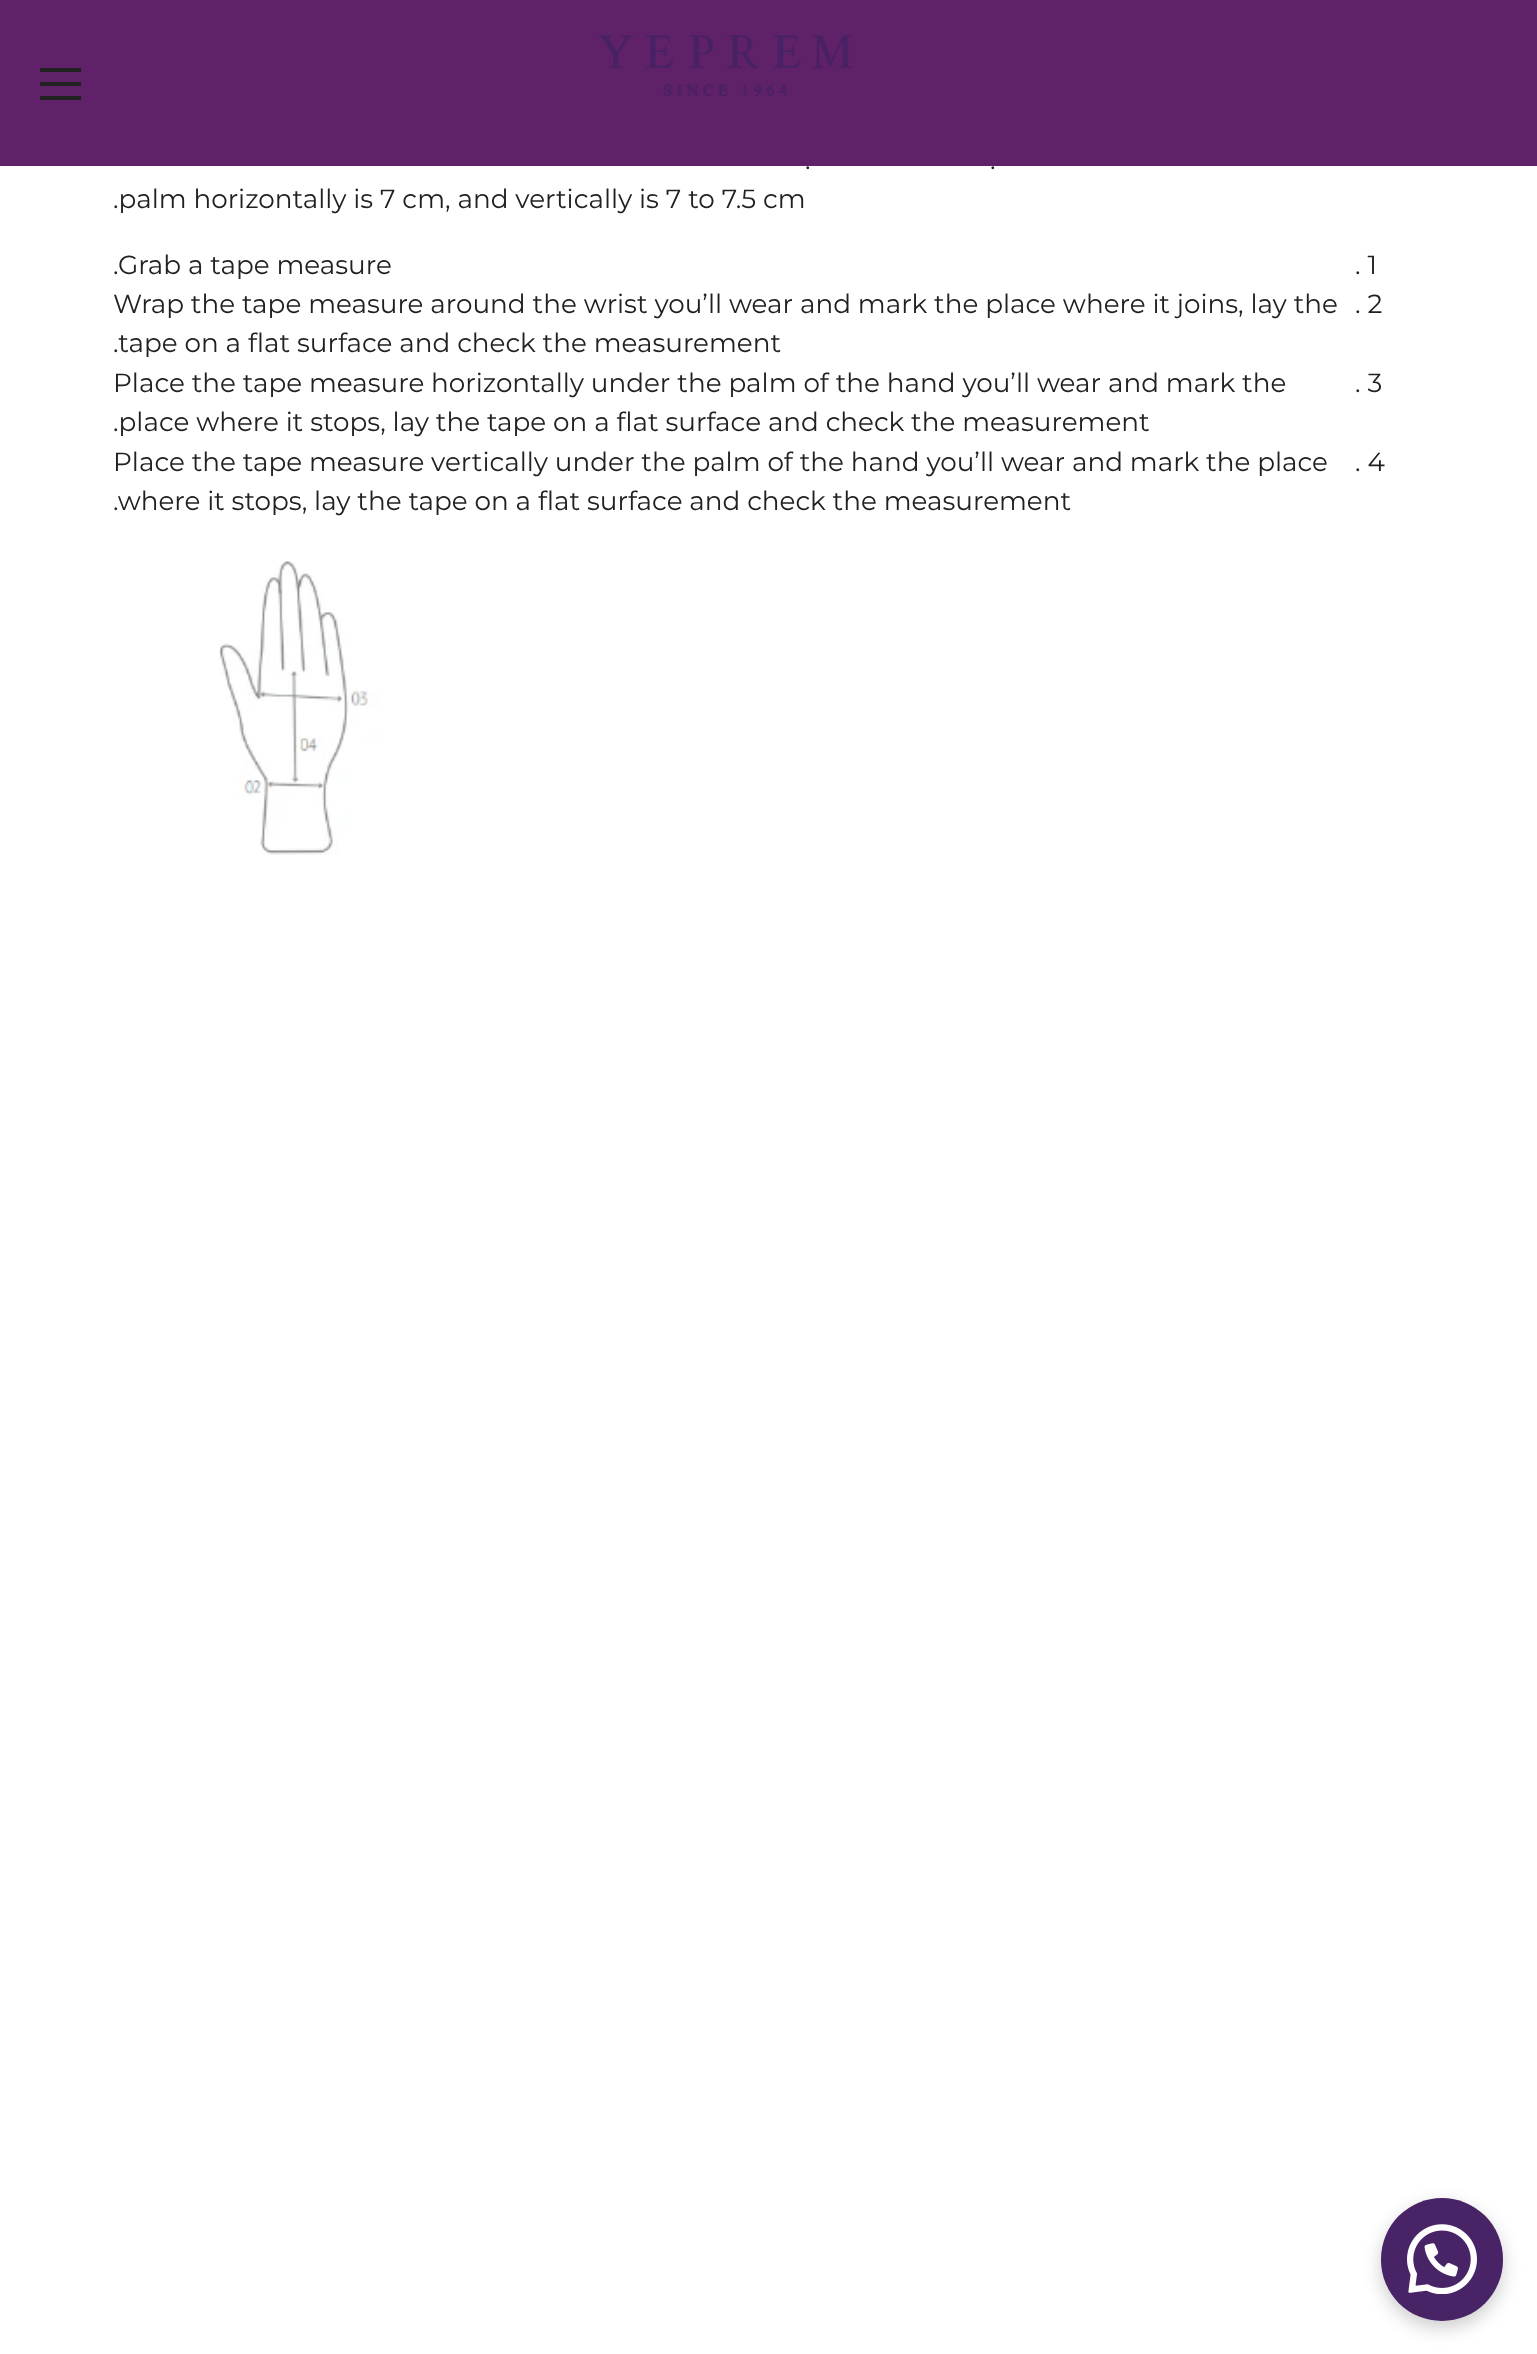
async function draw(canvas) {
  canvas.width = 1537;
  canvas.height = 2354;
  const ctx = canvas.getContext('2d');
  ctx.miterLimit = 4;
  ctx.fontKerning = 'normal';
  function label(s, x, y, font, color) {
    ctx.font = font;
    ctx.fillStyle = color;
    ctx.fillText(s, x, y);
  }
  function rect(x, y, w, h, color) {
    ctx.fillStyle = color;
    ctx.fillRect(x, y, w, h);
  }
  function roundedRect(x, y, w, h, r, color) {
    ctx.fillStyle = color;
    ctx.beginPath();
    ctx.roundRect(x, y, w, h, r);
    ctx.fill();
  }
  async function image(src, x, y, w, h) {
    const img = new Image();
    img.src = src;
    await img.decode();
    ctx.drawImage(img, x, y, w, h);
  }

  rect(0, 0, 1537, 2354, '#fff');
  rect(0, 0, 1537, 166, '#5f2167');
  rect(40, 68, 41, 4, '#212121');
  rect(40, 82, 41, 4, '#212121');
  rect(40, 96, 41, 4, '#212121');
  await image('assets/img1.png', 598, 35, 255, 61);
  label('.', 805, 169, '100 26.25px Montserrat', '#212121');
  label('.', 990, 169, '100 26.25px Montserrat', '#212121');
  label('.palm horizontally is 7 cm, and vertically is 7 to 7.5 cm', 113, 208, '100 26.25px Montserrat', '#212121');
  label('.Grab a tape measure', 113, 274, '100 26.25px Montserrat', '#212121');
  label('. 1', 1355, 274, '100 26.25px Montserrat', '#212121');
  label('Wrap the tape measure around the wrist you’ll wear and mark the place where it joins, lay the', 113, 313, '100 26.25px Montserrat', '#212121');
  label('. 2', 1355, 313, '100 26.25px Montserrat', '#212121');
  label('.tape on a flat surface and check the measurement', 113, 352, '100 26.25px Montserrat', '#212121');
  label('Place the tape measure horizontally under the palm of the hand you’ll wear and mark the', 113, 392, '100 26.25px Montserrat', '#212121');
  label('. 3', 1355, 392, '100 26.25px Montserrat', '#212121');
  label('.place where it stops, lay the tape on a flat surface and check the measurement', 113, 431, '100 26.25px Montserrat', '#212121');
  label('Place the tape measure vertically under the palm of the hand you’ll wear and mark the place', 113, 471, '100 26.25px Montserrat', '#212121');
  label('. 4', 1355, 471, '100 26.25px Montserrat', '#212121');
  label('.where it stops, lay the tape on a flat surface and check the measurement', 113, 510, '100 26.25px Montserrat', '#212121');
  await image('assets/img2.png', 219, 561, 160, 294);
  ctx.fillStyle = '#00000033';
  ctx.filter = 'blur(9px)';
  ctx.beginPath();
  ctx.roundRect(1381, 2205, 122, 123, 61);
  ctx.fill();
  ctx.filter = 'none';
  roundedRect(1381, 2198, 122, 123, 61, '#482366');
  await image('assets/img3.png', 1407, 2224, 70, 70);
}

draw(document.querySelector('canvas'));
